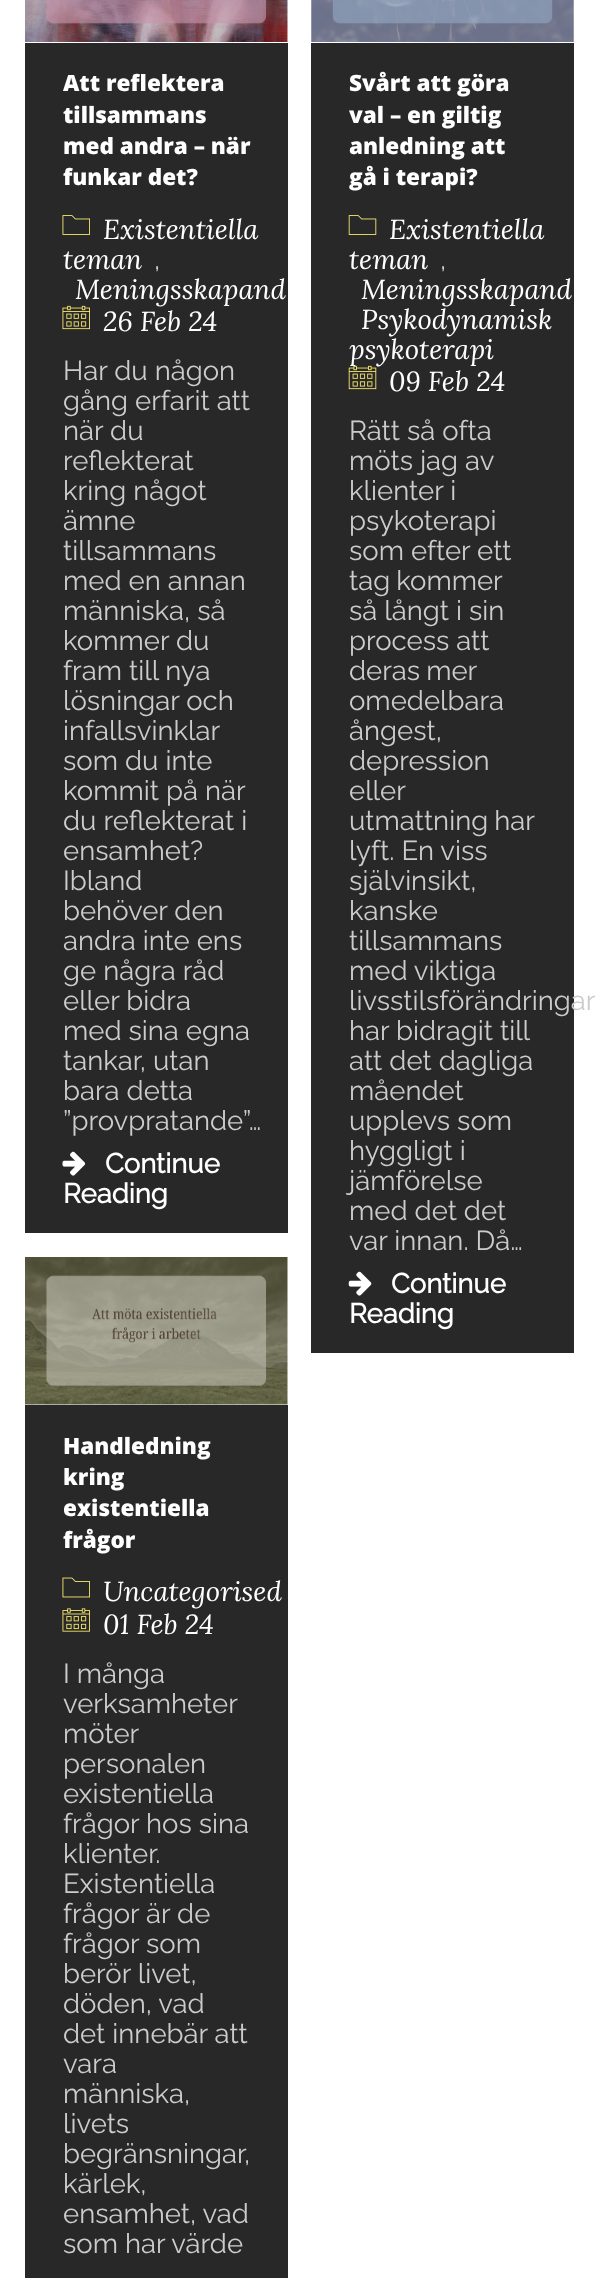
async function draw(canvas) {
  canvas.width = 599;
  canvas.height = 2278;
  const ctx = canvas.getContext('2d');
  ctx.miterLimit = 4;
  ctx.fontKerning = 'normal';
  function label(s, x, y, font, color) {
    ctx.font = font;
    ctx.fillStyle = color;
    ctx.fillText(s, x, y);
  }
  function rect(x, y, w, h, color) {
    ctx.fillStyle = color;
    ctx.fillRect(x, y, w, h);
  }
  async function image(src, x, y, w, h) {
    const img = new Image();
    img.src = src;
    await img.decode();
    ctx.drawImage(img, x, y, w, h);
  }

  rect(0, 0, 599, 2278, '#fff');
  await image('assets/img1.png', 25, 0, 263, 42);
  rect(25, 43, 263, 1190, '#282828');
  label('Att reflektera', 63, 91, '800 22.5px Open Sans', '#fff');
  label('tillsammans', 63, 123, '800 22.5px Open Sans', '#fff');
  label('med andra – när', 63, 154, '800 22.5px Open Sans', '#fff');
  label('funkar det?', 63, 185, '800 22.5px Open Sans', '#fff');
  await image('assets/img2.png', 62, 215, 28, 20);
  label('Existentiella', 103, 239, 'italic 27.5px Lora', '#fff');
  label('teman', 63, 269, 'italic 27.5px Lora', '#fff');
  label(',', 154, 269, '100 27.5px Raleway', '#ccc');
  label('Meningsskapand', 75, 299, 'italic 27.5px Lora', '#fff');
  await image('assets/img3.png', 62, 305, 28, 25);
  label('26 Feb 24', 103, 331, 'italic 27.5px Lora', '#fff');
  label('Har du någon', 63, 380, '100 27.5px Raleway', '#ccc');
  label('gång erfarit att', 63, 410, '100 27.5px Raleway', '#ccc');
  label('när du', 63, 440, '100 27.5px Raleway', '#ccc');
  label('reflekterat', 63, 470, '100 27.5px Raleway', '#ccc');
  label('kring något', 63, 500, '100 27.5px Raleway', '#ccc');
  label('ämne', 63, 530, '100 27.5px Raleway', '#ccc');
  label('tillsammans', 63, 560, '100 27.5px Raleway', '#ccc');
  label('med en annan', 63, 590, '100 27.5px Raleway', '#ccc');
  label('människa, så', 63, 620, '100 27.5px Raleway', '#ccc');
  label('kommer du', 63, 650, '100 27.5px Raleway', '#ccc');
  label('fram till nya', 63, 680, '100 27.5px Raleway', '#ccc');
  label('lösningar och', 63, 710, '100 27.5px Raleway', '#ccc');
  label('infallsvinklar', 63, 740, '100 27.5px Raleway', '#ccc');
  label('som du inte', 63, 770, '100 27.5px Raleway', '#ccc');
  label('kommit på när', 63, 800, '100 27.5px Raleway', '#ccc');
  label('du reflekterat i', 63, 830, '100 27.5px Raleway', '#ccc');
  label('ensamhet?', 63, 860, '100 27.5px Raleway', '#ccc');
  label('Ibland', 63, 890, '100 27.5px Raleway', '#ccc');
  label('behöver den', 63, 920, '100 27.5px Raleway', '#ccc');
  label('andra inte ens', 63, 950, '100 27.5px Raleway', '#ccc');
  label('ge några råd', 63, 980, '100 27.5px Raleway', '#ccc');
  label('eller bidra', 63, 1010, '100 27.5px Raleway', '#ccc');
  label('med sina egna', 63, 1040, '100 27.5px Raleway', '#ccc');
  label('tankar, utan', 63, 1070, '100 27.5px Raleway', '#ccc');
  label('bara detta', 63, 1100, '100 27.5px Raleway', '#ccc');
  label('”provpratande”…', 63, 1130, '100 27.5px Raleway', '#ccc');
  await image('assets/img4.png', 62, 1151, 24, 25);
  label('Continue', 105, 1173, 'bold 27.5px Raleway', '#fff');
  label('Reading', 63, 1203, 'bold 27.5px Raleway', '#fff');
  await image('assets/img5.png', 311, 0, 263, 42);
  rect(311, 43, 263, 1310, '#282828');
  label('Svårt att göra', 349, 91, '800 22.5px Open Sans', '#fff');
  label('val – en giltig', 349, 123, '800 22.5px Open Sans', '#fff');
  label('anledning att', 349, 154, '800 22.5px Open Sans', '#fff');
  label('gå i terapi?', 349, 185, '800 22.5px Open Sans', '#fff');
  await image('assets/img6.png', 348, 215, 29, 20);
  label('Existentiella', 389, 239, 'italic 27.5px Lora', '#fff');
  label('teman', 349, 269, 'italic 27.5px Lora', '#fff');
  label(',', 440, 269, '100 27.5px Raleway', '#ccc');
  label('Meningsskapand', 361, 299, 'italic 27.5px Lora', '#fff');
  label('Psykodynamisk', 361, 329, 'italic 27.5px Lora', '#fff');
  label('psykoterapi', 349, 359, 'italic 27.5px Lora', '#fff');
  await image('assets/img7.png', 348, 365, 29, 25);
  label('09 Feb 24', 389, 391, 'italic 27.5px Lora', '#fff');
  label('Rätt så ofta', 349, 440, '100 27.5px Raleway', '#ccc');
  label('möts jag av', 349, 470, '100 27.5px Raleway', '#ccc');
  label('klienter i', 349, 500, '100 27.5px Raleway', '#ccc');
  label('psykoterapi', 349, 530, '100 27.5px Raleway', '#ccc');
  label('som efter ett', 349, 560, '100 27.5px Raleway', '#ccc');
  ctx.wordSpacing = '-1px';
  label('tag kommer', 349, 590, '100 27.5px Raleway', '#ccc');
  ctx.wordSpacing = '0px';
  label('så långt i sin', 349, 620, '100 27.5px Raleway', '#ccc');
  label('process att', 349, 650, '100 27.5px Raleway', '#ccc');
  ctx.wordSpacing = '-1px';
  label('deras mer', 349, 680, '100 27.5px Raleway', '#ccc');
  ctx.wordSpacing = '0px';
  label('omedelbara', 349, 710, '100 27.5px Raleway', '#ccc');
  label('ångest,', 349, 740, '100 27.5px Raleway', '#ccc');
  label('depression', 349, 770, '100 27.5px Raleway', '#ccc');
  label('eller', 349, 800, '100 27.5px Raleway', '#ccc');
  ctx.wordSpacing = '-1px';
  label('utmattning har', 349, 830, '100 27.5px Raleway', '#ccc');
  ctx.wordSpacing = '0px';
  label('lyft. En viss', 349, 860, '100 27.5px Raleway', '#ccc');
  label('självinsikt,', 349, 890, '100 27.5px Raleway', '#ccc');
  label('kanske', 349, 920, '100 27.5px Raleway', '#ccc');
  label('tillsammans', 349, 950, '100 27.5px Raleway', '#ccc');
  label('med viktiga', 349, 980, '100 27.5px Raleway', '#ccc');
  label('livsstilsförändringar', 349, 1010, '100 27.5px Raleway', '#ccc');
  label('har bidragit till', 349, 1040, '100 27.5px Raleway', '#ccc');
  label('att det dagliga', 349, 1070, '100 27.5px Raleway', '#ccc');
  label('måendet', 349, 1100, '100 27.5px Raleway', '#ccc');
  label('upplevs som', 349, 1130, '100 27.5px Raleway', '#ccc');
  label('hyggligt i', 349, 1160, '100 27.5px Raleway', '#ccc');
  label('jämförelse', 349, 1190, '100 27.5px Raleway', '#ccc');
  label('med det det', 349, 1220, '100 27.5px Raleway', '#ccc');
  label('var innan. Då…', 349, 1250, '100 27.5px Raleway', '#ccc');
  await image('assets/img8.png', 348, 1271, 24, 25);
  label('Continue', 391, 1293, 'bold 27.5px Raleway', '#fff');
  label('Reading', 349, 1323, 'bold 27.5px Raleway', '#fff');
  await image('assets/img9.png', 25, 1257, 263, 148);
  rect(25, 1405, 263, 873, '#282828');
  label('Handledning', 63, 1454, '800 22.5px Open Sans', '#fff');
  label('kring', 63, 1485, '800 22.5px Open Sans', '#fff');
  label('existentiella', 63, 1516, '800 22.5px Open Sans', '#fff');
  label('frågor', 63, 1548, '800 22.5px Open Sans', '#fff');
  await image('assets/img10.png', 62, 1577, 28, 21);
  label('Uncategorised', 103, 1601, 'italic 27.5px Lora', '#fff');
  await image('assets/img11.png', 62, 1608, 28, 24);
  label('01 Feb 24', 103, 1634, 'italic 27.5px Lora', '#fff');
  label('I många', 63, 1683, '100 27.5px Raleway', '#ccc');
  label('verksamheter', 63, 1713, '100 27.5px Raleway', '#ccc');
  label('möter', 63, 1743, '100 27.5px Raleway', '#ccc');
  label('personalen', 63, 1773, '100 27.5px Raleway', '#ccc');
  label('existentiella', 63, 1803, '100 27.5px Raleway', '#ccc');
  label('frågor hos sina', 63, 1833, '100 27.5px Raleway', '#ccc');
  label('klienter.', 63, 1863, '100 27.5px Raleway', '#ccc');
  label('Existentiella', 63, 1893, '100 27.5px Raleway', '#ccc');
  label('frågor är de', 63, 1923, '100 27.5px Raleway', '#ccc');
  label('frågor som', 63, 1953, '100 27.5px Raleway', '#ccc');
  label('berör livet,', 63, 1983, '100 27.5px Raleway', '#ccc');
  label('döden, vad', 63, 2013, '100 27.5px Raleway', '#ccc');
  label('det innebär att', 63, 2043, '100 27.5px Raleway', '#ccc');
  label('vara', 63, 2073, '100 27.5px Raleway', '#ccc');
  label('människa,', 63, 2103, '100 27.5px Raleway', '#ccc');
  label('livets', 63, 2133, '100 27.5px Raleway', '#ccc');
  label('begränsningar,', 63, 2163, '100 27.5px Raleway', '#ccc');
  label('kärlek,', 63, 2193, '100 27.5px Raleway', '#ccc');
  label('ensamhet, vad', 63, 2223, '100 27.5px Raleway', '#ccc');
  label('som har värde', 63, 2253, '100 27.5px Raleway', '#ccc');
}

draw(document.querySelector('canvas'));
